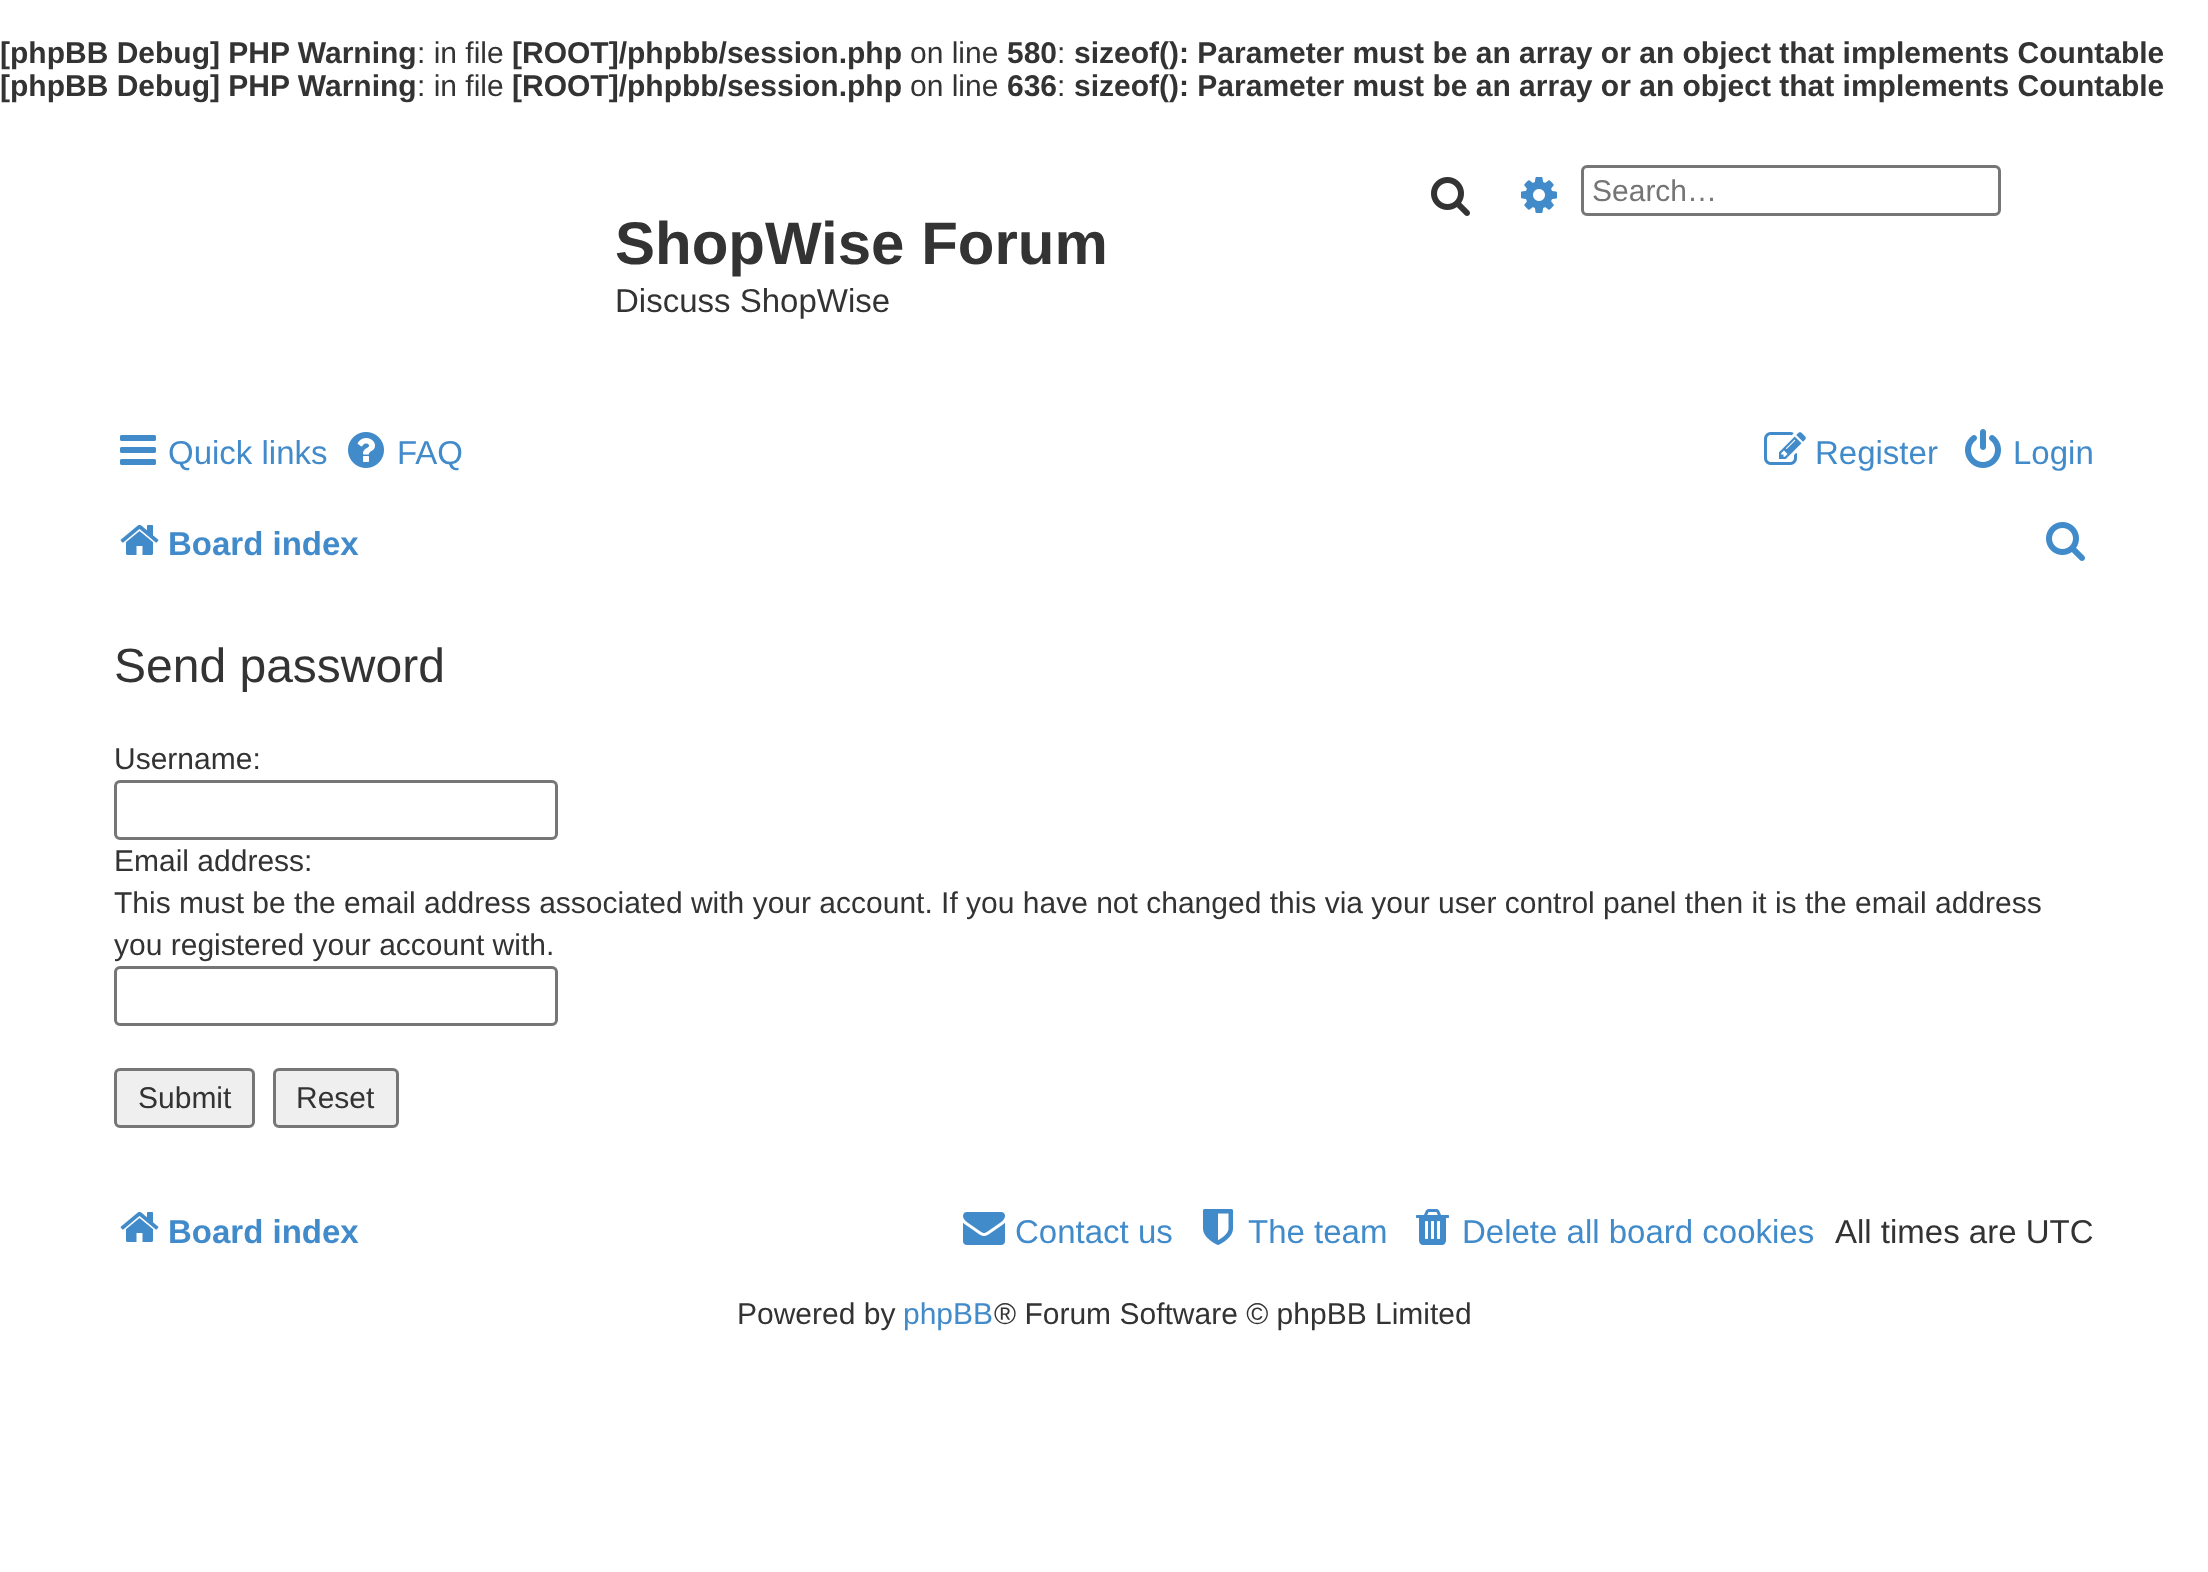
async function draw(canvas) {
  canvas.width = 2208;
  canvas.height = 1572;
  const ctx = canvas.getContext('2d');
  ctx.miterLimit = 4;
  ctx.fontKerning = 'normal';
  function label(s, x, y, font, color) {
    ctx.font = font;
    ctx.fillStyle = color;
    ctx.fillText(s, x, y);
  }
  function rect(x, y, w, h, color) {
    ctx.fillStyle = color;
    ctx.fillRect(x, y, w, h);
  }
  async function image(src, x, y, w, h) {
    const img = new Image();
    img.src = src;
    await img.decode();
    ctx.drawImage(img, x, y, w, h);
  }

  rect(0, 0, 2208, 1572, '#fff');
  label('[phpBB Debug] PHP Warning', 0, 63, 'bold 30px Liberation Sans', '#333');
  label(': in file', 417, 63, '30px Liberation Sans', '#333');
  label('[ROOT]/phpbb/session.php', 512, 63, 'bold 30px Liberation Sans', '#333');
  label('on line', 910, 63, '30px Liberation Sans', '#333');
  label('580', 1007, 63, 'bold 30px Liberation Sans', '#333');
  label(':', 1057, 63, '30px Liberation Sans', '#333');
  label('sizeof(): Parameter must be an array or an object that implements Countable', 1074, 63, 'bold 30px Liberation Sans', '#333');
  label('[phpBB Debug] PHP Warning', 0, 96, 'bold 30px Liberation Sans', '#333');
  label(': in file', 417, 96, '30px Liberation Sans', '#333');
  label('[ROOT]/phpbb/session.php', 512, 96, 'bold 30px Liberation Sans', '#333');
  label('on line', 910, 96, '30px Liberation Sans', '#333');
  label('636', 1007, 96, 'bold 30px Liberation Sans', '#333');
  label(':', 1057, 96, '30px Liberation Sans', '#333');
  label('sizeof(): Parameter must be an array or an object that implements Countable', 1074, 96, 'bold 30px Liberation Sans', '#333');
  await image('assets/img1.png', 1431, 177, 39, 39);
  await image('assets/img2.png', 1521, 177, 36, 36);
  ctx.beginPath();
  ctx.roundRect(1582.5, 166.5, 417, 48, 4.5);
  ctx.strokeStyle = '#767676';
  ctx.lineWidth = 3;
  ctx.stroke();
  label('Search…', 1592, 201, '30px Liberation Sans', '#757575');
  label('ShopWise Forum', 615, 264, 'bold 60px Liberation Sans', '#333');
  label('Discuss ShopWise', 615, 312, '33px Liberation Sans', '#333');
  await image('assets/img3.png', 120, 435, 36, 30);
  label('Quick links', 168, 464, '33px Liberation Sans', '#428bca');
  await image('assets/img4.png', 348, 432, 36, 36);
  label('FAQ', 397, 464, '33px Liberation Sans', '#428bca');
  await image('assets/img5.png', 1764, 432, 42, 33);
  label('Register', 1815, 464, '33px Liberation Sans', '#428bca');
  await image('assets/img6.png', 1965, 429, 36, 39);
  label('Login', 2013, 464, '33px Liberation Sans', '#428bca');
  await image('assets/img7.png', 120, 524, 39, 31);
  label('Board index', 168, 555, 'bold 33px Liberation Sans', '#428bca');
  await image('assets/img8.png', 2046, 522, 39, 39);
  label('Send password', 114, 682, '48px Liberation Sans', '#333');
  label('Username:', 114, 769, '30px Liberation Sans', '#333');
  ctx.beginPath();
  ctx.roundRect(115.5, 781.5, 441, 57, 4.5);
  ctx.stroke();
  label('Email address:', 114, 871, '30px Liberation Sans', '#333');
  label('This must be the email address associated with your account. If you have not changed this via your user control panel then it is the email address', 114, 913, '30px Liberation Sans', '#333');
  label('you registered your account with.', 114, 955, '30px Liberation Sans', '#333');
  ctx.beginPath();
  ctx.roundRect(115.5, 967.5, 441, 57, 4.5);
  ctx.stroke();
  ctx.fillStyle = '#efefef';
  ctx.beginPath();
  ctx.roundRect(115.5, 1069.5, 138, 57, 4.5);
  ctx.fill();
  ctx.stroke();
  label('Submit', 138, 1108, '30px Liberation Sans', '#333');
  ctx.fillStyle = '#efefef';
  ctx.beginPath();
  ctx.roundRect(274.5, 1069.5, 123, 57, 4.5);
  ctx.fill();
  ctx.stroke();
  label('Reset', 296, 1108, '30px Liberation Sans', '#333');
  await image('assets/img7.png', 120, 1211, 39, 31);
  label('Board index', 168, 1243, 'bold 33px Liberation Sans', '#428bca');
  await image('assets/img9.png', 963, 1212, 42, 33);
  label('Contact us', 1015, 1243, '33px Liberation Sans', '#428bca');
  await image('assets/img10.png', 1203, 1209, 30, 36);
  label('The team', 1248, 1243, '33px Liberation Sans', '#428bca');
  await image('assets/img11.png', 1416, 1209, 33, 36);
  label('Delete all board cookies', 1462, 1243, '33px Liberation Sans', '#428bca');
  label('All times are UTC', 1835, 1243, '33px Liberation Sans', '#333');
  label('Powered by', 737, 1324, '30px Liberation Sans', '#333');
  label('phpBB', 903, 1324, '30px Liberation Sans', '#428bca');
  label('® Forum Software © phpBB Limited', 994, 1324, '30px Liberation Sans', '#333');
}

draw(document.querySelector('canvas'));
